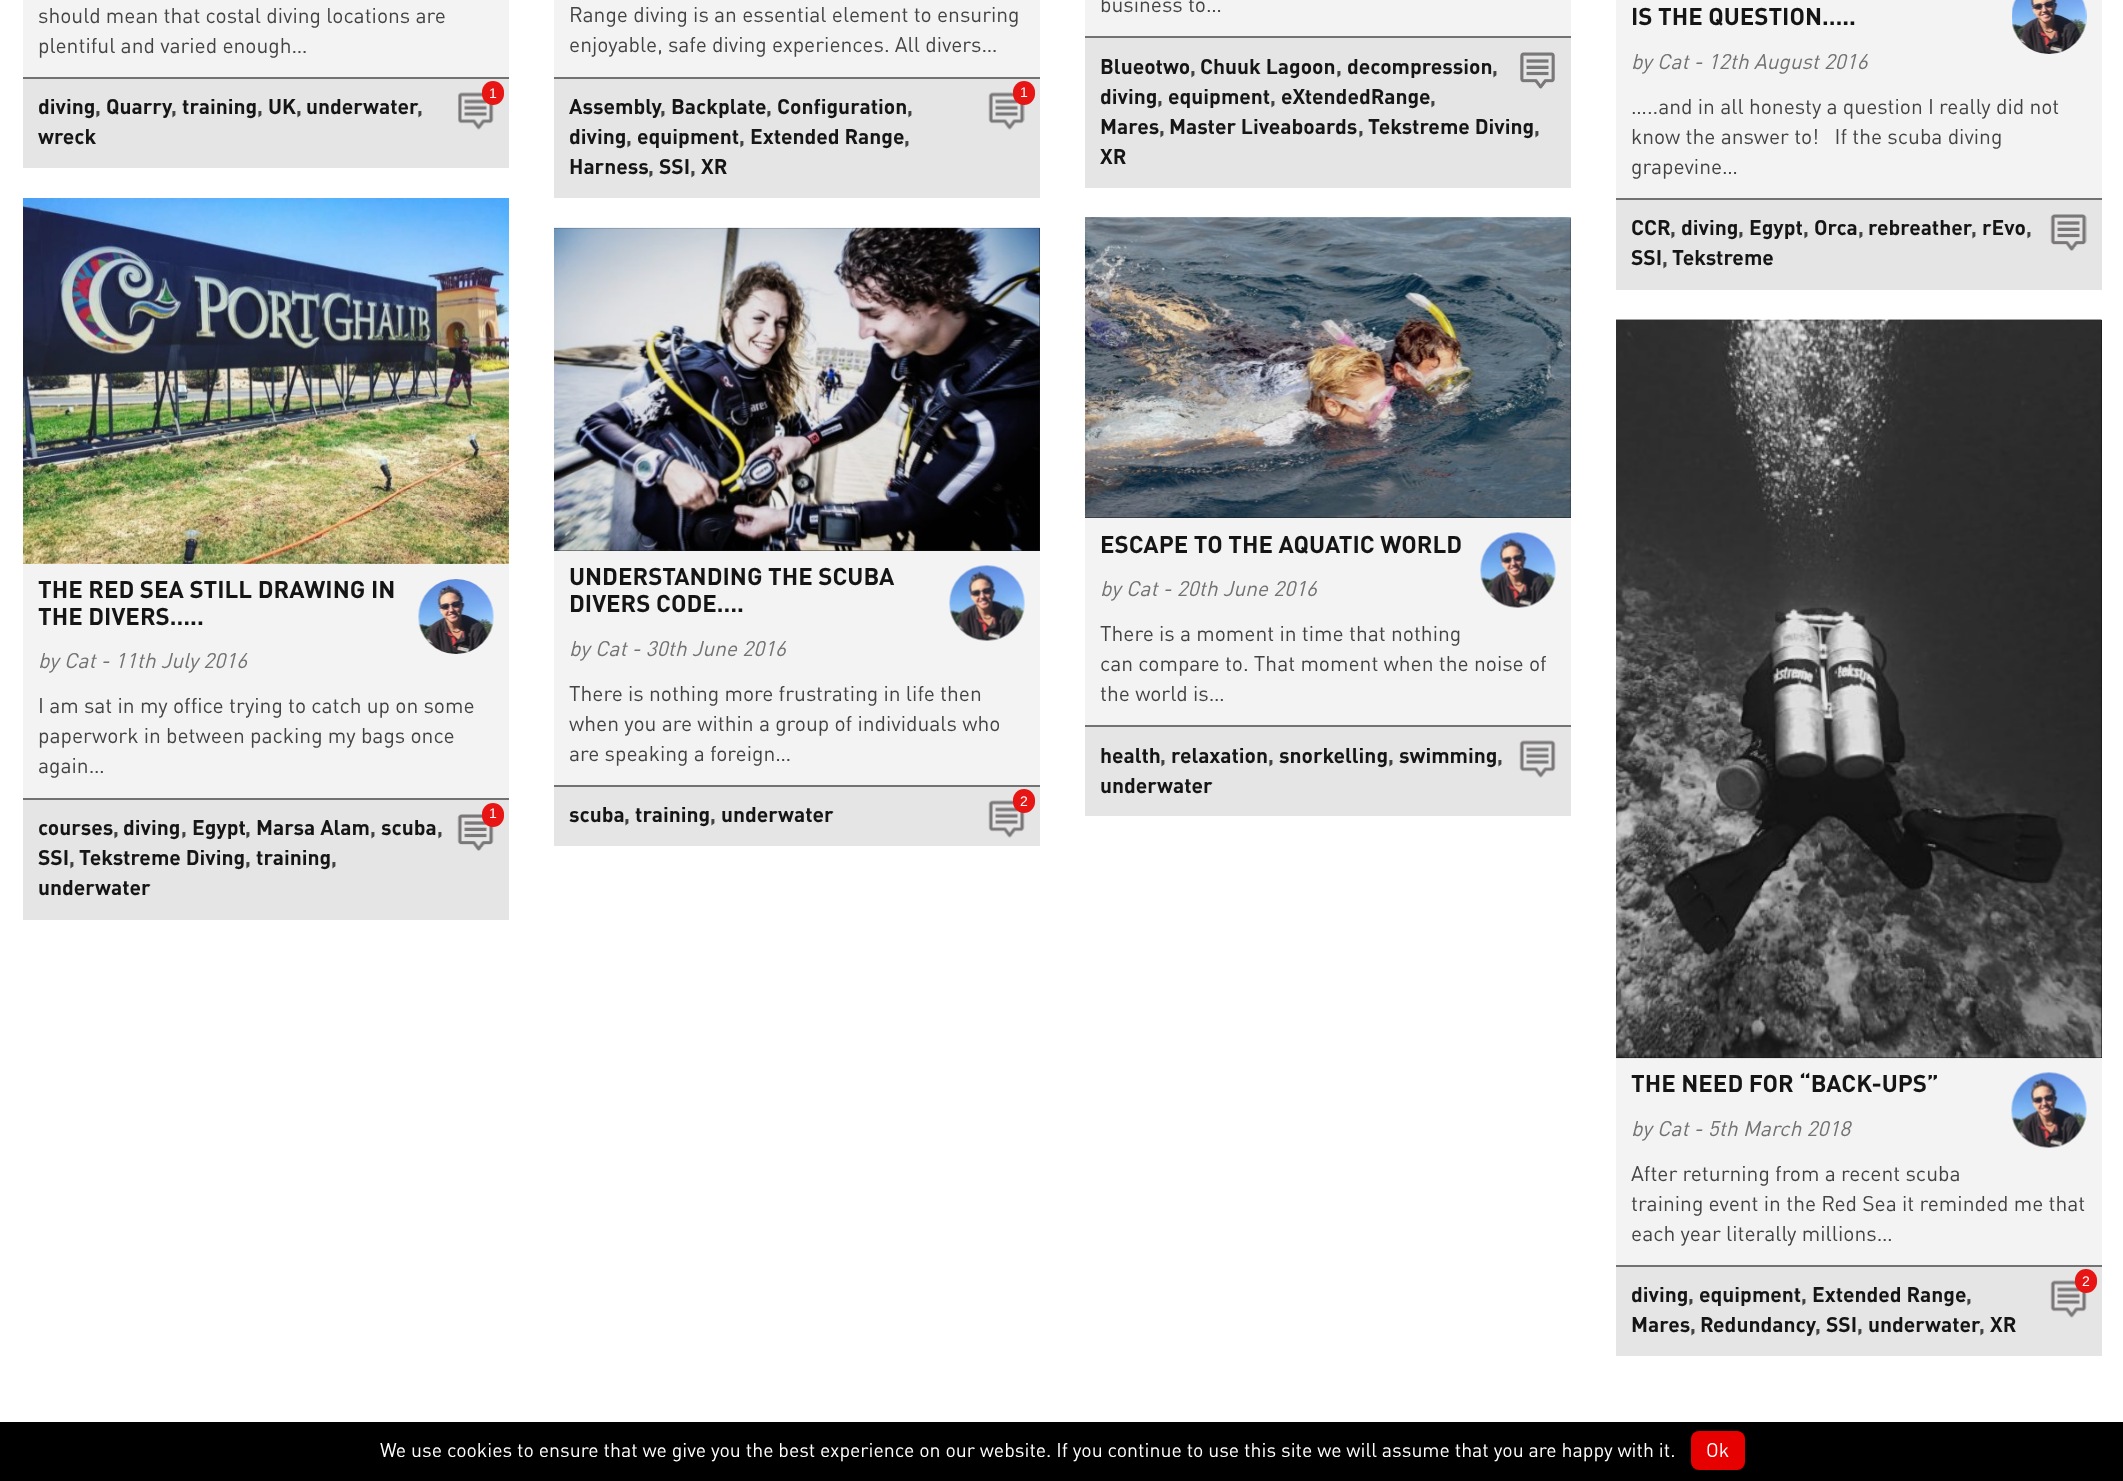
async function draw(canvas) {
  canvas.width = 2123;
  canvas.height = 1481;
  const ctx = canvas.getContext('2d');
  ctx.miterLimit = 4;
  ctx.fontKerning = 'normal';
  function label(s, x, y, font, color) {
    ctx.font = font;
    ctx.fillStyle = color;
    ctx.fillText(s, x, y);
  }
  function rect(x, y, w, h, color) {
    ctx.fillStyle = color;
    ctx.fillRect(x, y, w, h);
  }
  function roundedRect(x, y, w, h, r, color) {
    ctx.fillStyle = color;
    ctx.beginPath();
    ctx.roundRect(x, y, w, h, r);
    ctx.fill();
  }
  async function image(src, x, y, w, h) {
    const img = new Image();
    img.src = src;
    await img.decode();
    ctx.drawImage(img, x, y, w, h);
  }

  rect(0, 0, 2123, 1481, '#fff');
  rect(23, 0, 486, 77, '#f3f3f3');
  label('should mean that costal diving locations are', 38, 23, '21px DIN', '#444');
  label('plentiful and varied enough…', 38, 53, '21px DIN', '#444');
  rect(23, 79, 486, 89, '#e5e5e5');
  rect(23, 77, 486, 2, '#737273');
  await image('assets/img1.png', 458, 92, 36, 38);
  roundedRect(482, 81, 22, 24, 11, '#e81515');
  label('1', 489, 98, '14px Liberation Sans', '#fff');
  label('diving', 38, 114, 'bold 21px DIN', '#151515');
  label(',', 95, 114, 'bold 21px DIN', '#444');
  label('Quarry', 106, 114, 'bold 21px DIN', '#151515');
  label(',', 171, 114, 'bold 21px DIN', '#444');
  label('training', 182, 114, 'bold 21px DIN', '#151515');
  label(',', 257, 114, 'bold 21px DIN', '#444');
  label('UK', 268, 114, 'bold 21px DIN', '#151515');
  label(',', 296, 114, 'bold 21px DIN', '#444');
  label('underwater', 306, 114, 'bold 21px DIN', '#151515');
  label(',', 417, 114, 'bold 21px DIN', '#444');
  label('wreck', 38, 144, 'bold 21px DIN', '#151515');
  rect(23, 198, 486, 600, '#f3f3f3');
  await image('assets/img2.png', 23, 198, 486, 366);
  label('THE RED SEA STILL DRAWING IN', 38, 598, 'bold 24px DIN', '#151515');
  label('THE DIVERS…..', 38, 625, 'bold 24px DIN', '#151515');
  await image('assets/img3.png', 418, 579, 76, 75);
  label('by Cat - 11th July 2016', 38, 668, 'italic 21px DIN', '#737273');
  label('I am sat in my office trying to catch up on some', 38, 713, '21px DIN', '#444');
  label('paperwork in between packing my bags once', 38, 743, '21px DIN', '#444');
  label('again…', 38, 773, '21px DIN', '#444');
  rect(23, 800, 486, 120, '#e5e5e5');
  rect(23, 798, 486, 2, '#737273');
  await image('assets/img4.png', 457, 814, 37, 37);
  roundedRect(482, 803, 22, 24, 11, '#e81515');
  label('1', 489, 818, '14px Liberation Sans', '#fff');
  label('courses', 38, 835, 'bold 21px DIN', '#151515');
  label(',', 113, 835, 'bold 21px DIN', '#444');
  label('diving', 123, 835, 'bold 21px DIN', '#151515');
  label(',', 181, 835, 'bold 21px DIN', '#444');
  label('Egypt', 192, 835, 'bold 21px DIN', '#151515');
  label(',', 245, 835, 'bold 21px DIN', '#444');
  label('Marsa Alam', 256, 835, 'bold 21px DIN', '#151515');
  label(',', 370, 835, 'bold 21px DIN', '#444');
  label('scuba', 381, 835, 'bold 21px DIN', '#151515');
  label(',', 437, 835, 'bold 21px DIN', '#444');
  label('SSI', 38, 865, 'bold 21px DIN', '#151515');
  label(',', 69, 865, 'bold 21px DIN', '#444');
  label('Tekstreme Diving', 79, 865, 'bold 21px DIN', '#151515');
  label(',', 245, 865, 'bold 21px DIN', '#444');
  label('training', 256, 865, 'bold 21px DIN', '#151515');
  label(',', 331, 865, 'bold 21px DIN', '#444');
  label('underwater', 38, 895, 'bold 21px DIN', '#151515');
  rect(554, 0, 486, 77, '#f3f3f3');
  label('Range diving is an essential element to ensuring', 569, 22, '21px DIN', '#444');
  label('enjoyable, safe diving experiences. All divers…', 569, 52, '21px DIN', '#444');
  rect(554, 79, 486, 119, '#e5e5e5');
  rect(554, 77, 486, 2, '#737273');
  await image('assets/img5.png', 988, 92, 37, 38);
  roundedRect(1013, 81, 22, 24, 11, '#e81515');
  label('1', 1020, 97, '14px Liberation Sans', '#fff');
  label('Assembly', 569, 114, 'bold 21px DIN', '#151515');
  label(',', 660, 114, 'bold 21px DIN', '#444');
  label('Backplate', 671, 114, 'bold 21px DIN', '#151515');
  label(',', 766, 114, 'bold 21px DIN', '#444');
  label('Configuration', 777, 114, 'bold 21px DIN', '#151515');
  label(',', 907, 114, 'bold 21px DIN', '#444');
  label('diving', 569, 144, 'bold 21px DIN', '#151515');
  label(',', 626, 144, 'bold 21px DIN', '#444');
  label('equipment', 637, 144, 'bold 21px DIN', '#151515');
  label(',', 739, 144, 'bold 21px DIN', '#444');
  label('Extended Range', 750, 144, 'bold 21px DIN', '#151515');
  label(',', 904, 144, 'bold 21px DIN', '#444');
  label('Harness', 569, 174, 'bold 21px DIN', '#151515');
  label(',', 648, 174, 'bold 21px DIN', '#444');
  label('SSI', 659, 174, 'bold 21px DIN', '#151515');
  label(',', 690, 174, 'bold 21px DIN', '#444');
  label('XR', 701, 174, 'bold 21px DIN', '#151515');
  rect(554, 551, 486, 234, '#f3f3f3');
  rect(554, 228, 486, 323, '#151515');
  await image('assets/img6.png', 554, 227, 486, 324);
  label('UNDERSTANDING THE SCUBA', 569, 585, 'bold 24px DIN', '#151515');
  label('DIVERS CODE….', 569, 612, 'bold 24px DIN', '#151515');
  await image('assets/img7.png', 949, 565, 76, 76);
  label('by Cat - 30th June 2016', 569, 656, 'italic 21px DIN', '#737273');
  label('There is nothing more frustrating in life then', 569, 701, '21px DIN', '#444');
  label('when you are within a group of individuals who', 569, 731, '21px DIN', '#444');
  label('are speaking a foreign…', 569, 761, '21px DIN', '#444');
  rect(554, 787, 486, 59, '#e5e5e5');
  rect(554, 785, 486, 2, '#737273');
  await image('assets/img8.png', 988, 800, 37, 38);
  roundedRect(1013, 789, 22, 24, 11, '#e81515');
  label('2', 1020, 806, '14px Liberation Sans', '#fff');
  label('scuba', 569, 822, 'bold 21px DIN', '#151515');
  label(',', 624, 822, 'bold 21px DIN', '#444');
  label('training', 635, 822, 'bold 21px DIN', '#151515');
  label(',', 710, 822, 'bold 21px DIN', '#444');
  label('underwater', 721, 822, 'bold 21px DIN', '#151515');
  rect(1085, 0, 486, 36, '#f3f3f3');
  label('business to…', 1100, 12, '21px DIN', '#444');
  rect(1085, 38, 486, 150, '#e5e5e5');
  rect(1085, 36, 486, 2, '#737273');
  label('Blueotwo', 1100, 74, 'bold 21px DIN', '#151515');
  label(',', 1190, 74, 'bold 21px DIN', '#444');
  label('Chuuk Lagoon', 1200, 74, 'bold 21px DIN', '#151515');
  label(',', 1336, 74, 'bold 21px DIN', '#444');
  label('decompression', 1347, 74, 'bold 21px DIN', '#151515');
  label(',', 1492, 74, 'bold 21px DIN', '#444');
  await image('assets/img9.png', 1520, 52, 35, 37);
  label('diving', 1100, 104, 'bold 21px DIN', '#151515');
  label(',', 1157, 104, 'bold 21px DIN', '#444');
  label('equipment', 1168, 104, 'bold 21px DIN', '#151515');
  label(',', 1270, 104, 'bold 21px DIN', '#444');
  label('eXtendedRange', 1281, 104, 'bold 21px DIN', '#151515');
  label(',', 1430, 104, 'bold 21px DIN', '#444');
  label('Mares', 1100, 134, 'bold 21px DIN', '#151515');
  label(',', 1159, 134, 'bold 21px DIN', '#444');
  label('Master Liveaboards', 1169, 134, 'bold 21px DIN', '#151515');
  label(',', 1358, 134, 'bold 21px DIN', '#444');
  label('Tekstreme Diving', 1368, 134, 'bold 21px DIN', '#151515');
  label(',', 1534, 134, 'bold 21px DIN', '#444');
  label('XR', 1100, 164, 'bold 21px DIN', '#151515');
  rect(1085, 518, 486, 207, '#f3f3f3');
  rect(1085, 218, 486, 300, '#151515');
  await image('assets/img10.png', 1085, 217, 486, 301);
  label('ESCAPE TO THE AQUATIC WORLD', 1100, 553, 'bold 24px DIN', '#151515');
  await image('assets/img7.png', 1480, 532, 76, 76);
  label('by Cat - 20th June 2016', 1100, 596, 'italic 21px DIN', '#737273');
  label('There is a moment in time that nothing', 1100, 641, '21px DIN', '#444');
  label('can compare to. That moment when the noise of', 1100, 671, '21px DIN', '#444');
  label('the world is…', 1100, 701, '21px DIN', '#444');
  rect(1085, 727, 486, 89, '#e5e5e5');
  rect(1085, 725, 486, 2, '#737273');
  label('health', 1100, 763, 'bold 21px DIN', '#151515');
  label(',', 1160, 763, 'bold 21px DIN', '#444');
  label('relaxation', 1171, 763, 'bold 21px DIN', '#151515');
  label(',', 1268, 763, 'bold 21px DIN', '#444');
  label('snorkelling', 1279, 763, 'bold 21px DIN', '#151515');
  label(',', 1388, 763, 'bold 21px DIN', '#444');
  label('swimming', 1399, 763, 'bold 21px DIN', '#151515');
  label(',', 1497, 763, 'bold 21px DIN', '#444');
  await image('assets/img8.png', 1519, 740, 37, 38);
  label('underwater', 1100, 793, 'bold 21px DIN', '#151515');
  rect(1616, 0, 486, 198, '#f3f3f3');
  label('IS THE QUESTION…..', 1631, 25, 'bold 24px DIN', '#151515');
  await image('assets/img11.png', 2012, 0, 75, 54);
  label('by Cat - 12th August 2016', 1631, 69, 'italic 21px DIN', '#737273');
  label('…..and in all honesty a question I really did not', 1631, 114, '21px DIN', '#444');
  label('know the answer to!   If the scuba diving', 1631, 144, '21px DIN', '#444');
  label('grapevine…', 1631, 174, '21px DIN', '#444');
  rect(1616, 200, 486, 90, '#e5e5e5');
  rect(1616, 198, 486, 2, '#737273');
  label('CCR', 1631, 235, 'bold 21px DIN', '#151515');
  label(',', 1670, 235, 'bold 21px DIN', '#444');
  label('diving', 1681, 235, 'bold 21px DIN', '#151515');
  label(',', 1738, 235, 'bold 21px DIN', '#444');
  label('Egypt', 1749, 235, 'bold 21px DIN', '#151515');
  label(',', 1803, 235, 'bold 21px DIN', '#444');
  label('Orca', 1814, 235, 'bold 21px DIN', '#151515');
  label(',', 1858, 235, 'bold 21px DIN', '#444');
  label('rebreather', 1868, 235, 'bold 21px DIN', '#151515');
  label(',', 1971, 235, 'bold 21px DIN', '#444');
  label('rEvo', 1982, 235, 'bold 21px DIN', '#151515');
  label(',', 2026, 235, 'bold 21px DIN', '#444');
  await image('assets/img12.png', 2050, 214, 37, 37);
  label('SSI', 1631, 265, 'bold 21px DIN', '#151515');
  label(',', 1662, 265, 'bold 21px DIN', '#444');
  label('Tekstreme', 1672, 265, 'bold 21px DIN', '#151515');
  rect(1616, 1058, 486, 207, '#f3f3f3');
  rect(1616, 320, 486, 738, '#151515');
  await image('assets/img13.png', 1616, 319, 486, 740);
  label('THE NEED FOR “BACK-UPS”', 1631, 1092, 'bold 24px DIN', '#151515');
  await image('assets/img7.png', 2011, 1072, 76, 76);
  label('by Cat - 5th March 2018', 1631, 1136, 'italic 21px DIN', '#737273');
  label('After returning from a recent scuba', 1631, 1181, '21px DIN', '#444');
  label('training event in the Red Sea it reminded me that', 1631, 1211, '21px DIN', '#444');
  label('each year literally millions…', 1631, 1241, '21px DIN', '#444');
  rect(1616, 1267, 486, 89, '#e5e5e5');
  rect(1616, 1265, 486, 2, '#737273');
  await image('assets/img8.png', 2050, 1280, 37, 38);
  roundedRect(2075, 1269, 22, 24, 11, '#e81515');
  label('2', 2082, 1286, '14px Liberation Sans', '#fff');
  label('diving', 1631, 1302, 'bold 21px DIN', '#151515');
  label(',', 1688, 1302, 'bold 21px DIN', '#444');
  label('equipment', 1699, 1302, 'bold 21px DIN', '#151515');
  label(',', 1801, 1302, 'bold 21px DIN', '#444');
  label('Extended Range', 1812, 1302, 'bold 21px DIN', '#151515');
  label(',', 1966, 1302, 'bold 21px DIN', '#444');
  label('Mares', 1631, 1332, 'bold 21px DIN', '#151515');
  label(',', 1690, 1332, 'bold 21px DIN', '#444');
  label('Redundancy', 1700, 1332, 'bold 21px DIN', '#151515');
  label(',', 1815, 1332, 'bold 21px DIN', '#444');
  label('SSI', 1826, 1332, 'bold 21px DIN', '#151515');
  label(',', 1857, 1332, 'bold 21px DIN', '#444');
  label('underwater', 1868, 1332, 'bold 21px DIN', '#151515');
  label(',', 1979, 1332, 'bold 21px DIN', '#444');
  label('XR', 1990, 1332, 'bold 21px DIN', '#151515');
  rect(0, 1422, 2123, 59, '#000');
  label('We use cookies to ensure that we give you the best experience on our website. If you continue to use this site we will assume that you are happy with it.', 380, 1457, '19.5px DIN', '#fff');
  roundedRect(1691, 1431, 54, 39, 8, '#e60000');
  label('Ok', 1706, 1457, '19.5px DIN', '#fff');
}

draw(document.querySelector('canvas'));
